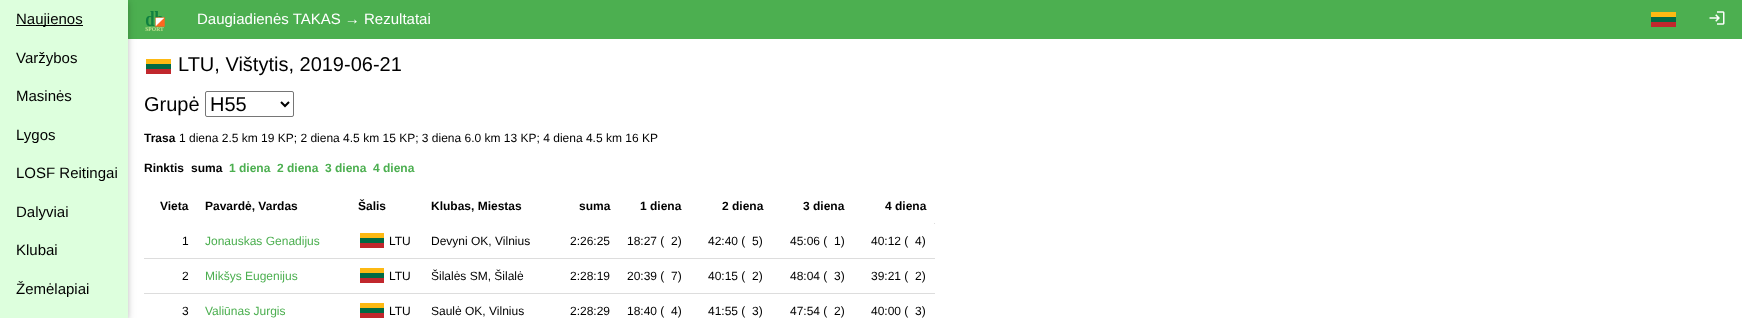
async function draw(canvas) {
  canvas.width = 1742;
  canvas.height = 318;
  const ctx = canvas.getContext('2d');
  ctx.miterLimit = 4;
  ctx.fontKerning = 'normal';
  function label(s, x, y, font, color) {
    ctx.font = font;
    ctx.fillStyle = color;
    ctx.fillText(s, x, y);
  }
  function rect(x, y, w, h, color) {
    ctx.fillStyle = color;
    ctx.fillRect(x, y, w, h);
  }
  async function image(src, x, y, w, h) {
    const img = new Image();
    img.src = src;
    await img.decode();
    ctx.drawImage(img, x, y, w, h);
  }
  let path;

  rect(0, 0, 1742, 318, '#fff');
  rect(128, 0, 1614, 39, '#4caf50');
  ctx.fillStyle = '#0000001f';
  ctx.filter = 'blur(5px)';
  ctx.beginPath();
  ctx.rect(0, 2, 128, 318);
  ctx.fill();
  ctx.filter = 'none';
  ctx.fillStyle = '#00000029';
  ctx.filter = 'blur(2.5px)';
  ctx.beginPath();
  ctx.rect(0, 2, 128, 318);
  ctx.fill();
  ctx.filter = 'none';
  rect(0, 0, 128, 318, '#dfd');
  rect(16, 25, 67, 1, '#000');
  label('Naujienos', 16, 24, '15px Liberation Sans', '#000');
  label('Varžybos', 16, 63, '15px Liberation Sans', '#000');
  label('Masinės', 16, 101, '15px Liberation Sans', '#000');
  label('Lygos', 16, 140, '15px Liberation Sans', '#000');
  label('LOSF Reitingai', 16, 178, '15px Liberation Sans', '#000');
  label('Dalyviai', 16, 217, '15px Liberation Sans', '#000');
  label('Klubai', 16, 255, '15px Liberation Sans', '#000');
  label('Žemėlapiai', 16, 294, '15px Liberation Sans', '#000');
  await image('assets/img1.png', 145, 11, 20, 20);
  label('Daugiadienės TAKAS → Rezultatai', 197, 24, '15px Liberation Sans', '#fff');
  rect(1651, 12, 25, 5, '#fdb913');
  rect(1651, 17, 25, 5, '#006a44');
  rect(1651, 22, 25, 5, '#c1272d');
  await image('assets/img2.png', 1709, 11, 16, 14);
  rect(146, 59, 25, 5, '#fdb913');
  rect(146, 64, 25, 5, '#006a44');
  rect(146, 69, 25, 5, '#c1272d');
  label('LTU, Vištytis, 2019-06-21', 178, 71, '20px Liberation Sans', '#000');
  label('Grupė', 144, 111, '20px Liberation Sans', '#000');
  ctx.beginPath();
  ctx.roundRect(205.5, 91.5, 88, 25, 1.5);
  ctx.strokeStyle = '#767676';
  ctx.stroke();
  path = new Path2D('M281 102L285 106L289 102');
  ctx.strokeStyle = '#000';
  ctx.lineWidth = 2;
  ctx.stroke(path);
  label('H55', 210, 111, '20px Liberation Sans', '#000');
  label('Trasa', 144, 142, 'bold 12px Liberation Sans', '#000');
  label('1 diena 2.5 km 19 KP; 2 diena 4.5 km 15 KP; 3 diena 6.0 km 13 KP; 4 diena 4.5 km 16 KP', 179, 142, '12px Liberation Sans', '#000');
  label('Rinktis', 144, 172, 'bold 12px Liberation Sans', '#000');
  label('suma', 191, 172, 'bold 12px Liberation Sans', '#000');
  label('1 diena', 229, 172, 'bold 12px Liberation Sans', '#4caf50');
  label('2 diena', 277, 172, 'bold 12px Liberation Sans', '#4caf50');
  label('3 diena', 325, 172, 'bold 12px Liberation Sans', '#4caf50');
  label('4 diena', 373, 172, 'bold 12px Liberation Sans', '#4caf50');
  rect(934, 223, 1, 1, '#ddd');
  label('Vieta', 160, 210, 'bold 12px Liberation Sans', '#000');
  label('Pavardė, Vardas', 205, 210, 'bold 12px Liberation Sans', '#000');
  label('Šalis', 358, 210, 'bold 12px Liberation Sans', '#000');
  label('Klubas, Miestas', 431, 210, 'bold 12px Liberation Sans', '#000');
  label('suma', 579, 210, 'bold 12px Liberation Sans', '#000');
  label('1 diena', 640, 210, 'bold 12px Liberation Sans', '#000');
  label('2 diena', 722, 210, 'bold 12px Liberation Sans', '#000');
  label('3 diena', 803, 210, 'bold 12px Liberation Sans', '#000');
  label('4 diena', 885, 210, 'bold 12px Liberation Sans', '#000');
  rect(144, 258, 791, 1, '#ddd');
  label('1', 182, 245, '12px Liberation Sans', '#000');
  label('Jonauskas Genadijus', 205, 245, '12px Liberation Sans', '#4caf50');
  rect(360, 233, 24, 5, '#fdb913');
  rect(360, 238, 24, 5, '#006a44');
  rect(360, 243, 24, 5, '#c1272d');
  label('LTU', 389, 245, '12px Liberation Sans', '#000');
  label('Devyni OK, Vilnius', 431, 245, '12px Liberation Sans', '#000');
  label('2:26:25', 570, 245, '12px Liberation Sans', '#000');
  label('18:27 (  2)', 627, 245, '12px Liberation Sans', '#000');
  label('42:40 (  5)', 708, 245, '12px Liberation Sans', '#000');
  label('45:06 (  1)', 790, 245, '12px Liberation Sans', '#000');
  label('40:12 (  4)', 871, 245, '12px Liberation Sans', '#000');
  rect(144, 293, 791, 1, '#ddd');
  label('2', 182, 280, '12px Liberation Sans', '#000');
  label('Mikšys Eugenijus', 205, 280, '12px Liberation Sans', '#4caf50');
  rect(360, 268, 24, 5, '#fdb913');
  rect(360, 273, 24, 5, '#006a44');
  rect(360, 278, 24, 5, '#c1272d');
  label('LTU', 389, 280, '12px Liberation Sans', '#000');
  label('Šilalės SM, Šilalė', 431, 280, '12px Liberation Sans', '#000');
  label('2:28:19', 570, 280, '12px Liberation Sans', '#000');
  label('20:39 (  7)', 627, 280, '12px Liberation Sans', '#000');
  label('40:15 (  2)', 708, 280, '12px Liberation Sans', '#000');
  label('48:04 (  3)', 790, 280, '12px Liberation Sans', '#000');
  label('39:21 (  2)', 871, 280, '12px Liberation Sans', '#000');
  label('3', 182, 315, '12px Liberation Sans', '#000');
  label('Valiūnas Jurgis', 205, 315, '12px Liberation Sans', '#4caf50');
  rect(360, 303, 24, 5, '#fdb913');
  rect(360, 308, 24, 5, '#006a44');
  rect(360, 313, 24, 5, '#c1272d');
  label('LTU', 389, 315, '12px Liberation Sans', '#000');
  label('Saulė OK, Vilnius', 431, 315, '12px Liberation Sans', '#000');
  label('2:28:29', 570, 315, '12px Liberation Sans', '#000');
  label('18:40 (  4)', 627, 315, '12px Liberation Sans', '#000');
  label('41:55 (  3)', 708, 315, '12px Liberation Sans', '#000');
  label('47:54 (  2)', 790, 315, '12px Liberation Sans', '#000');
  label('40:00 (  3)', 871, 315, '12px Liberation Sans', '#000');
}

draw(document.querySelector('canvas'));
